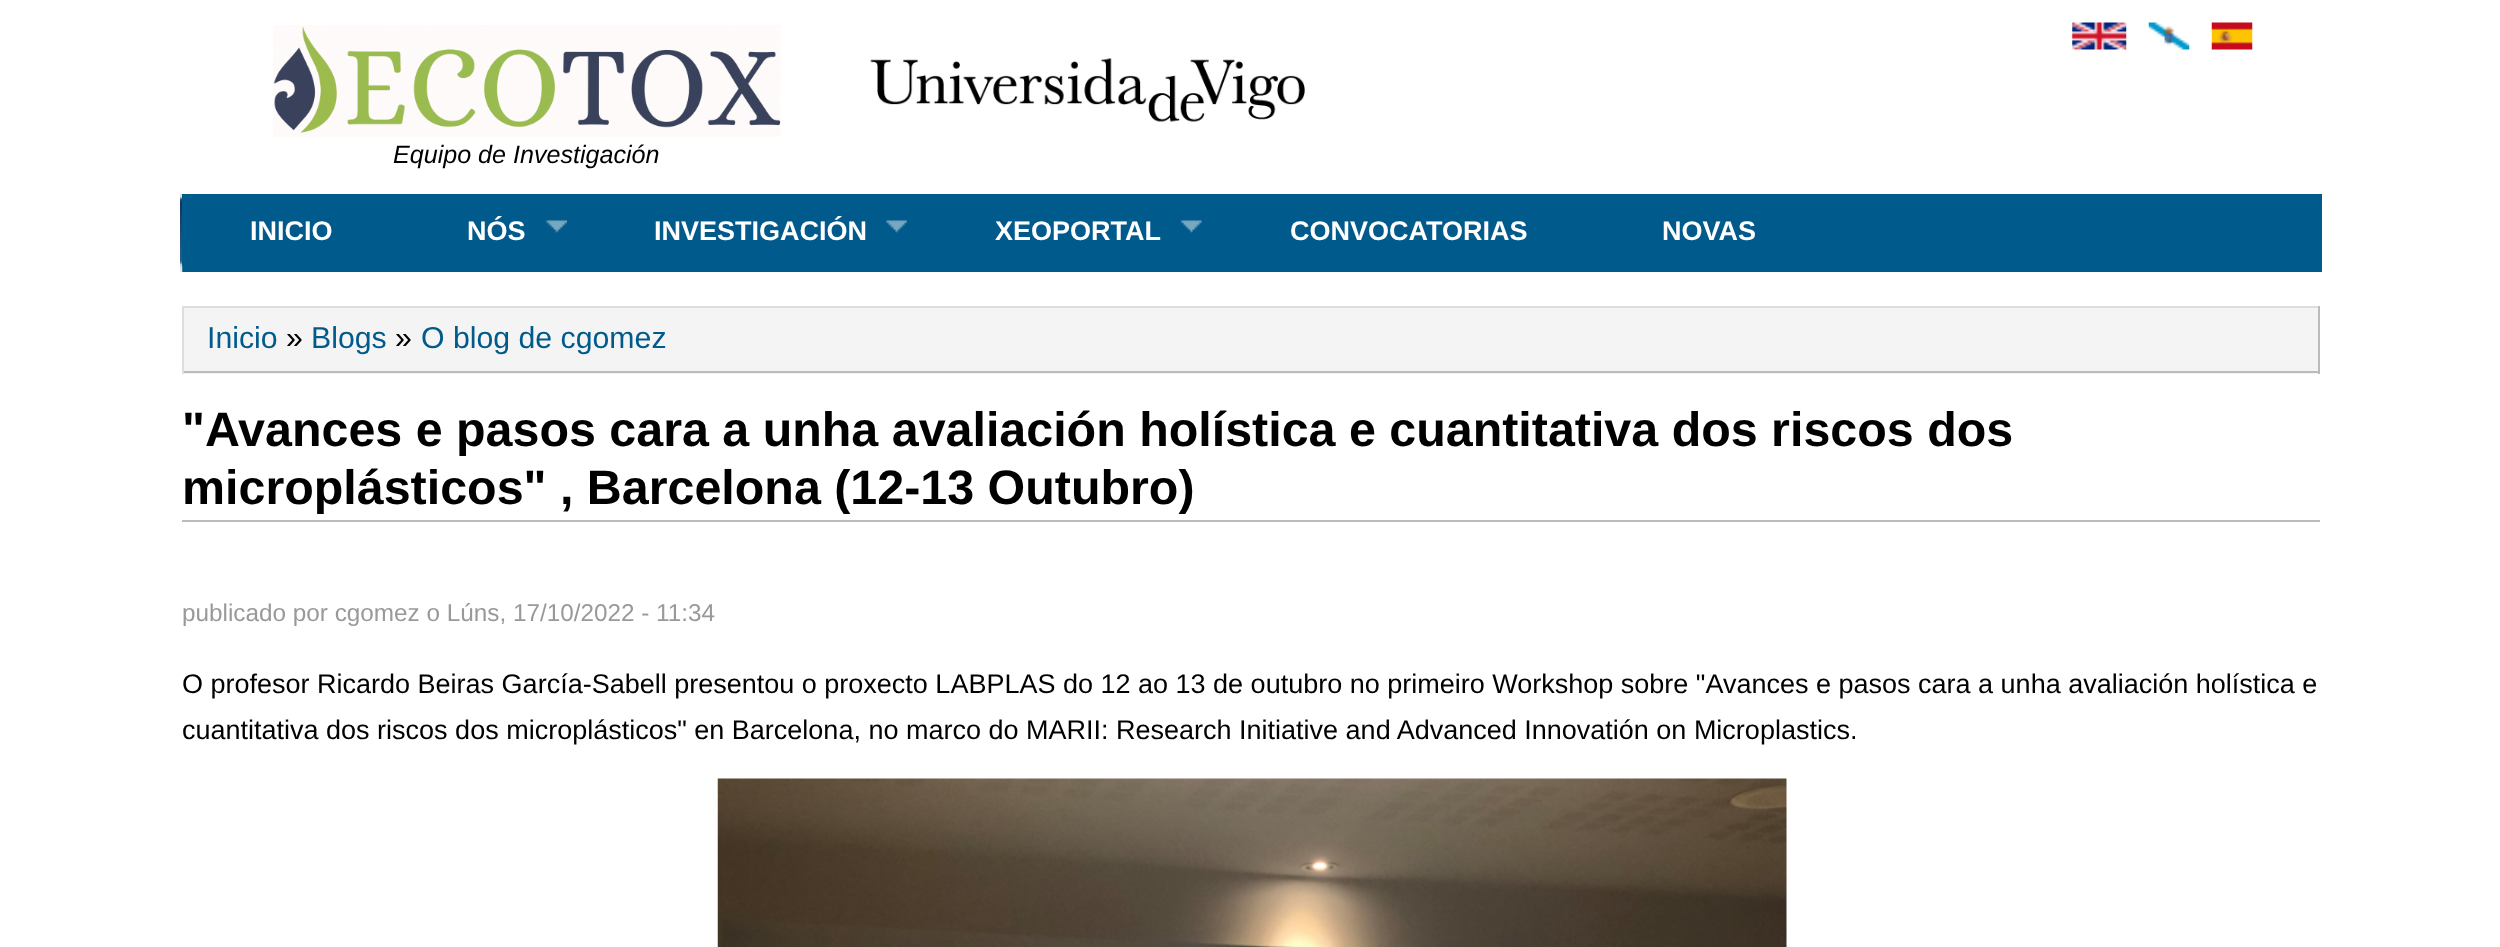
async function draw(canvas) {
  canvas.width = 2500;
  canvas.height = 947;
  const ctx = canvas.getContext('2d');
  ctx.miterLimit = 4;
  ctx.fontKerning = 'normal';
  function label(s, x, y, font, color) {
    ctx.font = font;
    ctx.fillStyle = color;
    ctx.fillText(s, x, y);
  }
  function rect(x, y, w, h, color) {
    ctx.fillStyle = color;
    ctx.fillRect(x, y, w, h);
  }
  async function image(src, x, y, w, h) {
    const img = new Image();
    img.src = src;
    await img.decode();
    ctx.drawImage(img, x, y, w, h);
  }

  rect(0, 0, 2500, 947, '#fff');
  await image('assets/img1.png', 2072, 22, 55, 28);
  await image('assets/img2.png', 2148, 22, 42, 28);
  await image('assets/img3.png', 2211, 22, 42, 28);
  await image('assets/img4.png', 870, 58, 435, 64);
  await image('assets/img5.png', 273, 25, 508, 112);
  label('Equipo de Investigación', 393, 163, 'italic 25.1px Liberation Sans', '#000');
  rect(182, 194, 2140, 78, '#005a8c');
  await image('assets/img6.png', 180, 193, 3, 80);
  rect(182, 194, 1, 72, '#005a8c');
  label('INICIO', 250, 240, 'bold 27px Liberation Sans', '#fff');
  label('NÓS', 467, 240, 'bold 27px Liberation Sans', '#fff');
  await image('assets/img7.png', 546, 220, 21, 13);
  label('INVESTIGACIÓN', 654, 240, 'bold 27px Liberation Sans', '#fff');
  await image('assets/img8.png', 886, 220, 21, 13);
  label('XEOPORTAL', 995, 240, 'bold 27px Liberation Sans', '#fff');
  await image('assets/img9.png', 1180, 220, 22, 13);
  label('CONVOCATORIAS', 1290, 240, 'bold 27px Liberation Sans', '#fff');
  label('NOVAS', 1662, 240, 'bold 27px Liberation Sans', '#fff');
  rect(184, 308, 2134, 66, '#f4f4f4');
  rect(182, 306, 2138, 2, '#ddd');
  rect(2318, 306, 2, 68, '#bbb');
  rect(182, 371, 2138, 2, '#bbb');
  rect(182, 306, 2, 68, '#ddd');
  label('Inicio', 207, 348, '30.25px Liberation Sans', '#005a8c');
  label('»', 286, 348, '30.25px Liberation Sans', '#000');
  label('Blogs', 311, 348, '30.25px Liberation Sans', '#005a8c');
  label('»', 395, 348, '30.25px Liberation Sans', '#000');
  label('O blog de cgomez', 421, 348, '30.25px Liberation Sans', '#005a8c');
  label('"Avances e pasos cara a unha avaliación holística e cuantitativa dos riscos dos', 182, 446, 'bold 48.4px Liberation Sans', '#000');
  label('microplásticos" , Barcelona (12-13 Outubro)', 182, 504, 'bold 48.4px Liberation Sans', '#000');
  rect(182, 520, 2138, 2, '#bbb');
  label('publicado por cgomez o Lúns, 17/10/2022 - 11:34', 182, 621, '24.3px Liberation Sans', '#999');
  label('O profesor Ricardo Beiras García-Sabell presentou o proxecto LABPLAS do 12 ao 13 de outubro no primeiro Workshop sobre "Avances e pasos cara a unha avaliación holística e', 182, 693, '27px Liberation Sans', '#000');
  label('cuantitativa dos riscos dos microplásticos" en Barcelona, no marco do MARII: Research Initiative and Advanced Innovatión on Microplastics.', 182, 739, '27px Liberation Sans', '#000');
  await image('assets/img10.png', 717, 778, 1070, 169);
}

draw(document.querySelector('canvas'));
